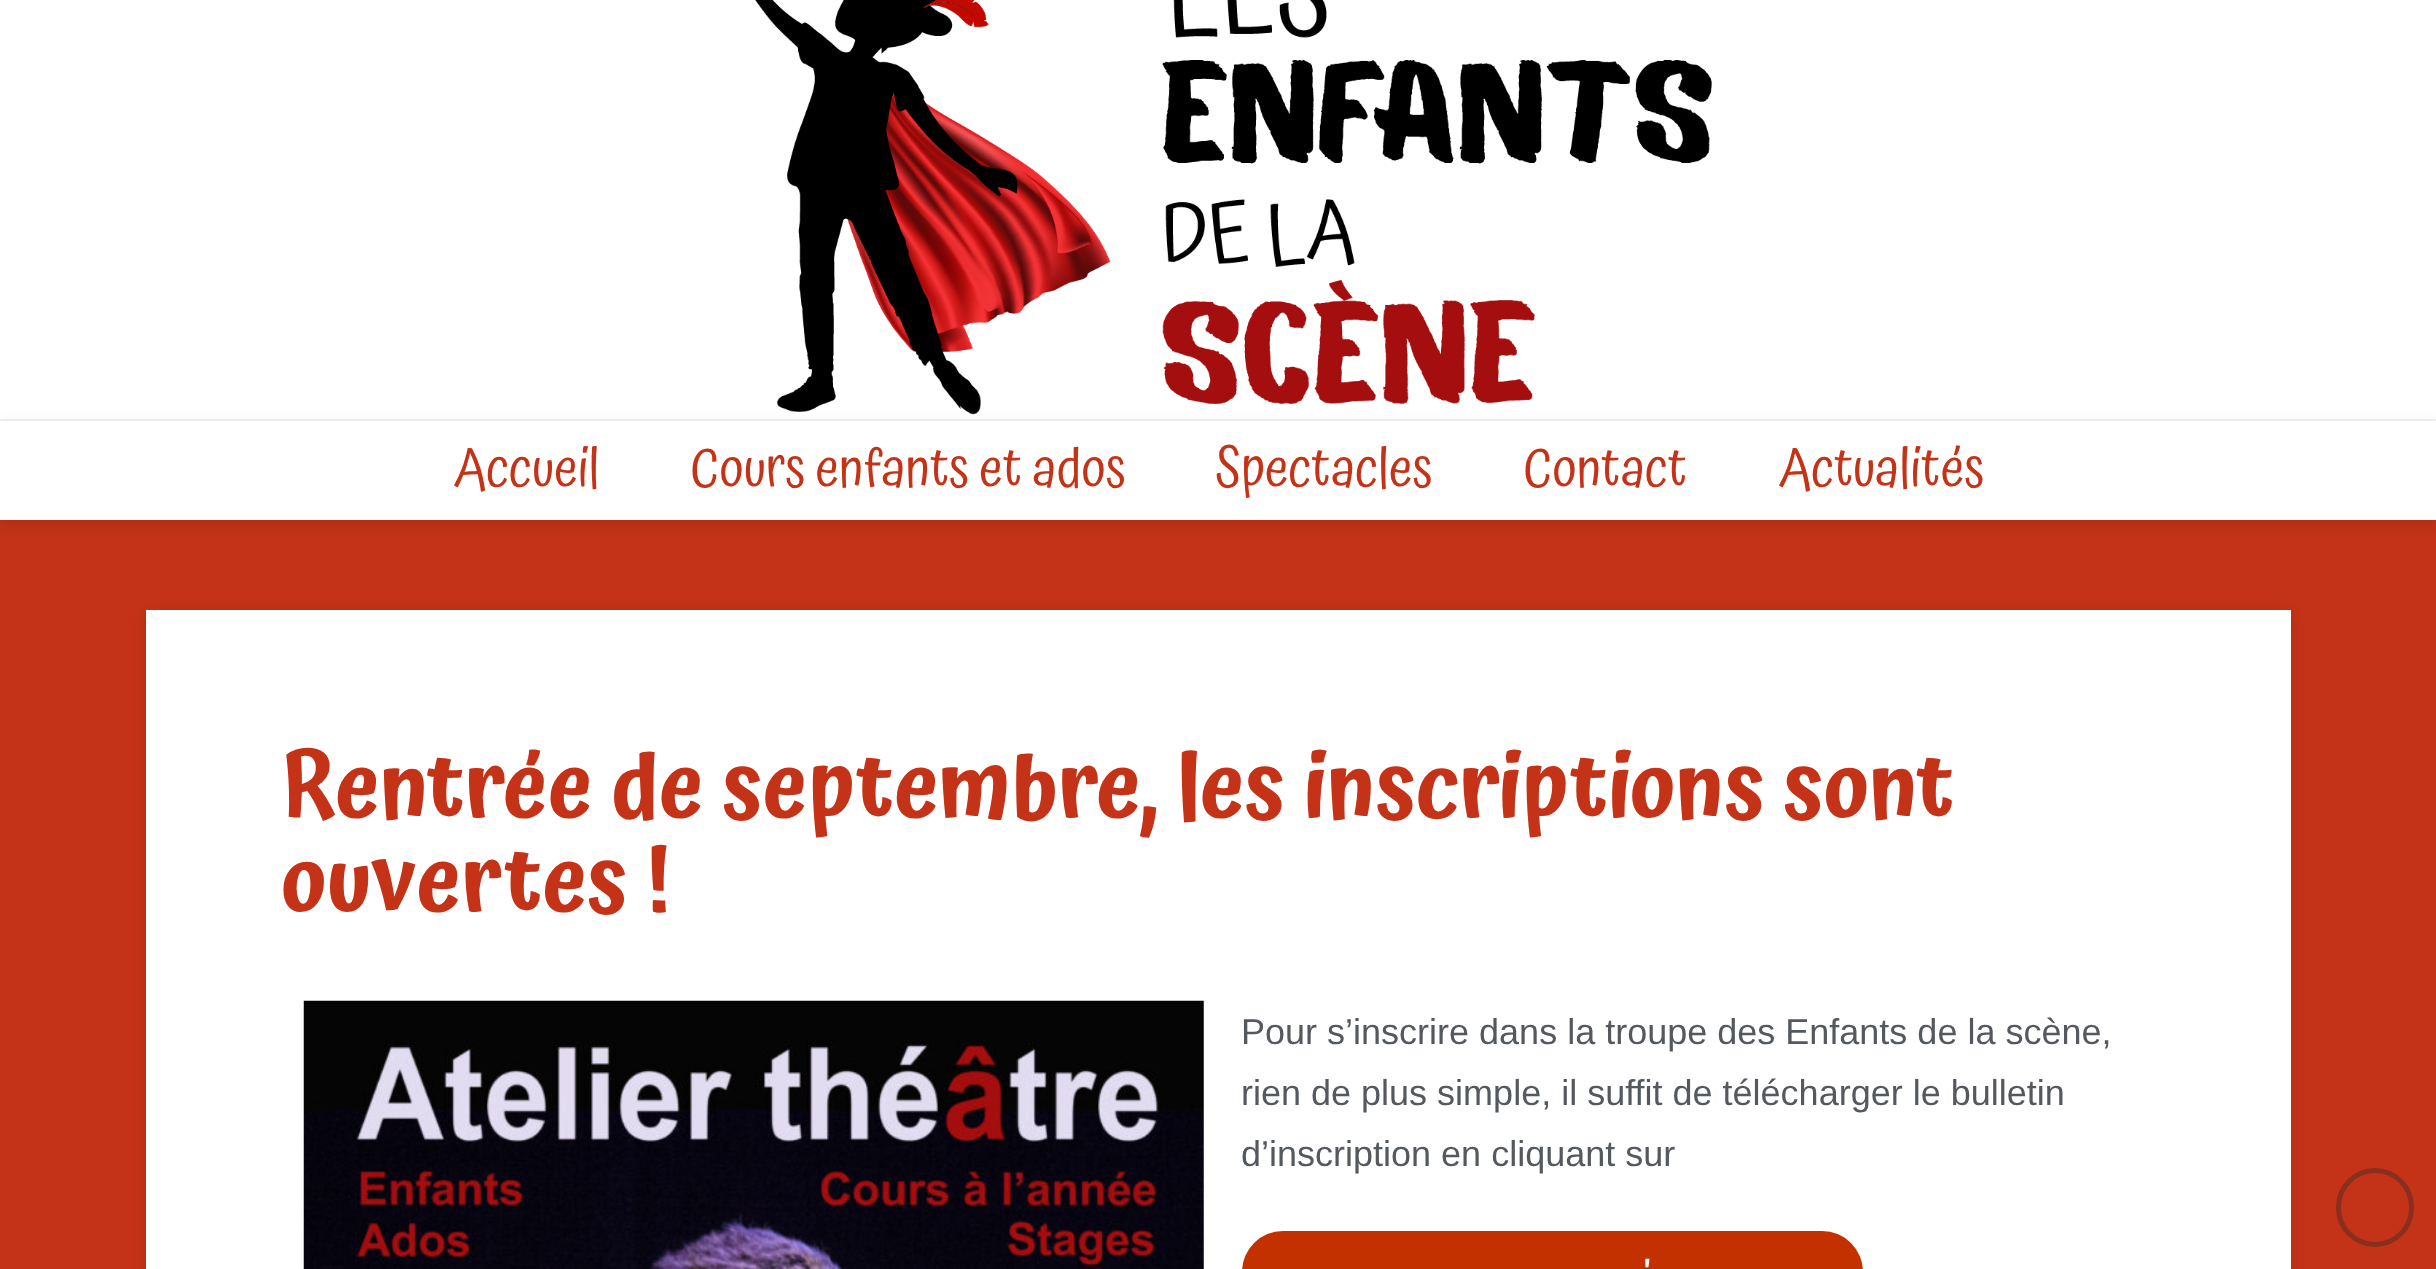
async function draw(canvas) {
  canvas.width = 2436;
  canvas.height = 1269;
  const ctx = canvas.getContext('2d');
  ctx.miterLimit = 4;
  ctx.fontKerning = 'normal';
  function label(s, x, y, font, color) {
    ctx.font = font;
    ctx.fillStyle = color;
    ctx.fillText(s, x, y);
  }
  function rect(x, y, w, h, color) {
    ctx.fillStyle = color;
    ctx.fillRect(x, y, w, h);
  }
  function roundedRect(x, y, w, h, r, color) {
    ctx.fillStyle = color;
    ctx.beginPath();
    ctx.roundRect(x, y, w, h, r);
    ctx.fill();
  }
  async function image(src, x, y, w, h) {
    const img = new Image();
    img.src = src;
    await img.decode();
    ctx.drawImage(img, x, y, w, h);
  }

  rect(0, 0, 2436, 1269, '#c43317');
  rect(0, 0, 2436, 419, '#fff');
  rect(0, 419, 2436, 2, '#f2f2f2');
  await image('assets/img1.png', 755, 0, 957, 415);
  ctx.fillStyle = '#00000021';
  ctx.filter = 'blur(6.5px)';
  ctx.beginPath();
  ctx.rect(0, 425, 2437, 99);
  ctx.fill();
  ctx.filter = 'none';
  rect(0, 421, 2436, 99, '#fff');
  label('Accueil', 453, 486, '54px Atma', '#c43317');
  label('Cours enfants et ados', 690, 486, '54px Atma', '#c43317');
  label('Spectacles', 1215, 486, '54px Atma', '#c43317');
  label('Contact', 1523, 486, '54px Atma', '#c43317');
  label('Actualités', 1778, 486, '54px Atma', '#c43317');
  ctx.fillStyle = '#00000021';
  ctx.filter = 'blur(6.5px)';
  ctx.beginPath();
  ctx.roundRect(146, 614, 2145, 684, 9);
  ctx.fill();
  ctx.filter = 'none';
  rect(146, 610, 2145, 659, '#fff');
  label('Rentrée de septembre, les inscriptions sont', 281, 817, '600 90px Atma', '#c43317');
  label('ouvertes !', 281, 911, '600 90px Atma', '#c43317');
  await image('assets/img2.png', 303, 1000, 901, 269);
  label('Pour s’inscrire dans la troupe des Enfants de la scène,', 1241, 1044, '36px Liberation Sans', '#54595f');
  label('rien de plus simple, il suffit de télécharger le bulletin', 1241, 1105, '36px Liberation Sans', '#54595f');
  label('d’inscription en cliquant sur', 1241, 1166, '36px Liberation Sans', '#54595f');
  roundedRect(1242, 1231, 621, 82, 44, '#c43100');
  label('\'', 1644, 1284, '600 34px Atma', '#fff');
  ctx.beginPath();
  ctx.roundRect(2338.5, 1170.5, 73, 74, 36.5);
  ctx.strokeStyle = '#892f1d';
  ctx.lineWidth = 5;
  ctx.stroke();
}

draw(document.querySelector('canvas'));
